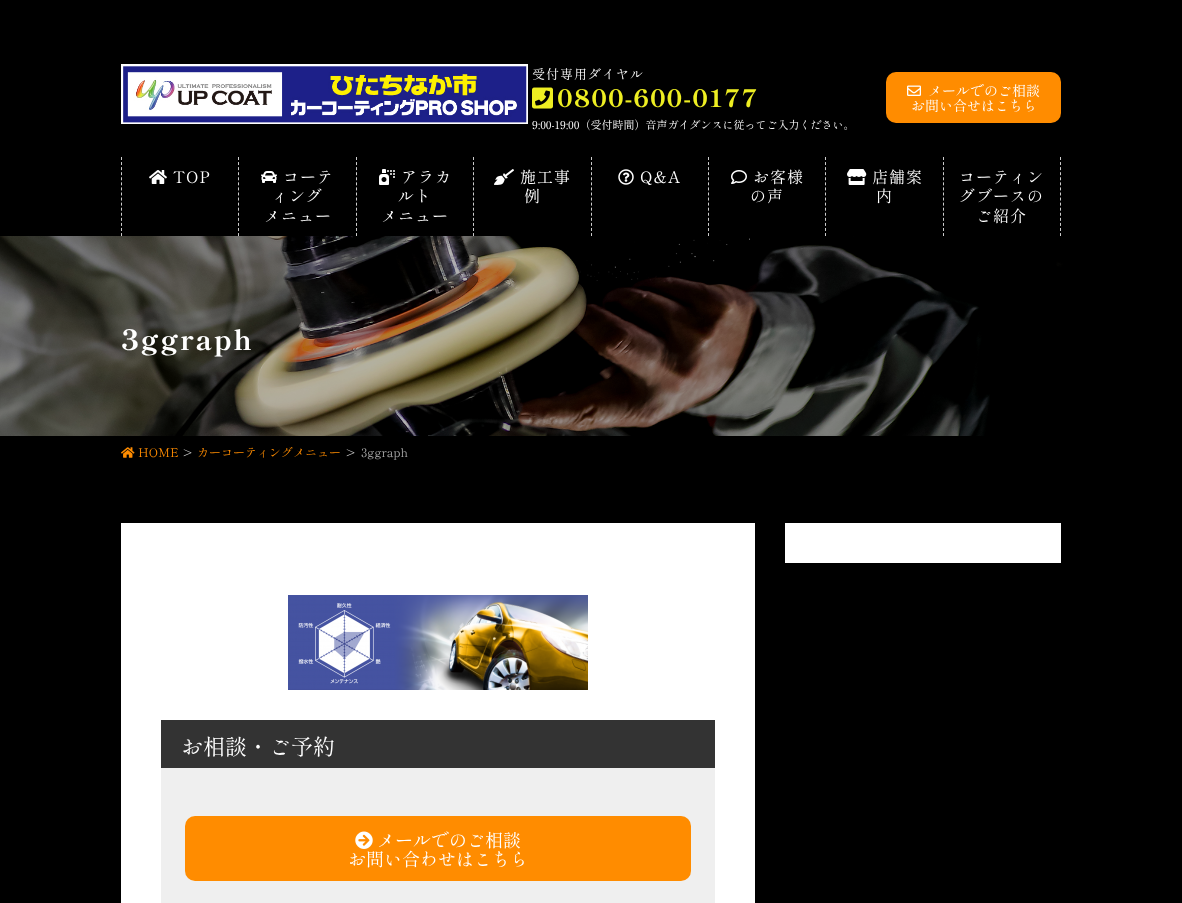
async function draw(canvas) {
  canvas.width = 1182;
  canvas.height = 903;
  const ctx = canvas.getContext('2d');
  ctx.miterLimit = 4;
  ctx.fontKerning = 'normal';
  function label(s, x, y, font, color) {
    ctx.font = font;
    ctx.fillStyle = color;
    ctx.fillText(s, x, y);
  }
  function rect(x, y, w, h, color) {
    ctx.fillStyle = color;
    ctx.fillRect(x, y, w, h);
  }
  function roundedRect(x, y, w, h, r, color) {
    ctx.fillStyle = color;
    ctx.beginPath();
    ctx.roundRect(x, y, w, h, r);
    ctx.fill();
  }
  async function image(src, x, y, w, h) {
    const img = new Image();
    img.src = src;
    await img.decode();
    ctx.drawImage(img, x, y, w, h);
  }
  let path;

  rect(0, 0, 1182, 903, '#000');
  await image('assets/img1.png', 121, 64, 407, 60);
  ctx.letterSpacing = '1px';
  label('受付専用ダイヤル', 532, 79, '13px Shippori Mincho', '#fff');
  await image('assets/img2.png', 532, 87, 21, 22);
  label('0800-600-0177', 557, 107, '800 24px Shippori Mincho', '#ee2');
  ctx.letterSpacing = '0px';
  label('9:00-19:00（受付時間）音声ガイダンスに従ってご入力ください。', 532, 129, '11px Shippori Mincho', '#fff');
  roundedRect(886, 72, 175, 51, 10, '#ff8c00');
  await image('assets/img3.png', 907, 85, 14, 11);
  label('メールでのご相談', 928, 96, '14px Shippori Mincho', '#fff');
  label('お問い合せはこちら', 911, 111, '14px Shippori Mincho', '#fff');
  path = new Path2D('M121.5 157V236');
  ctx.strokeStyle = '#ccc';
  ctx.setLineDash([3, 2.07]);
  ctx.stroke(path);
  await image('assets/img4.png', 149, 170, 18, 14);
  ctx.letterSpacing = '1px';
  label('TOP', 173, 183, '16px Shippori Mincho', '#fff');
  path = new Path2D('M238.5 157V236');
  ctx.stroke(path);
  await image('assets/img5.png', 261, 171, 16, 12);
  label('コーテ', 283, 183, '16px Shippori Mincho', '#fff');
  label('ィング', 272, 202, '16px Shippori Mincho', '#fff');
  label('メニュー', 264, 222, '16px Shippori Mincho', '#fff');
  path = new Path2D('M356.5 157V236');
  ctx.stroke(path);
  await image('assets/img6.png', 379, 169, 16, 16);
  label('アラカ', 401, 183, '16px Shippori Mincho', '#fff');
  label('ルト', 398, 202, '16px Shippori Mincho', '#fff');
  label('メニュー', 381, 222, '16px Shippori Mincho', '#fff');
  path = new Path2D('M473.5 157V236');
  ctx.stroke(path);
  await image('assets/img7.png', 494, 169, 20, 16);
  label('施工事', 520, 183, '16px Shippori Mincho', '#fff');
  label('例', 524, 202, '16px Shippori Mincho', '#fff');
  path = new Path2D('M591.5 157V236');
  ctx.stroke(path);
  await image('assets/img8.png', 618, 169, 16, 16);
  label('Q&A', 640, 183, '16px Shippori Mincho', '#fff');
  path = new Path2D('M708.5 157V236');
  ctx.stroke(path);
  await image('assets/img9.png', 731, 170, 16, 14);
  label('お客様', 753, 183, '16px Shippori Mincho', '#fff');
  label('の声', 750, 202, '16px Shippori Mincho', '#fff');
  path = new Path2D('M825.5 157V236');
  ctx.stroke(path);
  await image('assets/img10.png', 847, 169, 20, 16);
  label('店舗案', 872, 183, '16px Shippori Mincho', '#fff');
  label('内', 876, 202, '16px Shippori Mincho', '#fff');
  path = new Path2D('M1060.5 157V236');
  ctx.stroke(path);
  path = new Path2D('M943.5 157V236');
  ctx.stroke(path);
  label('コーティン', 959, 183, '16px Shippori Mincho', '#fff');
  label('グブースの', 959, 202, '16px Shippori Mincho', '#fff');
  label('ご紹介', 976, 222, '16px Shippori Mincho', '#fff');
  await image('assets/img11.png', 0, 236, 1182, 200);
  ctx.letterSpacing = '2px';
  label('3ggraph', 121, 350, '800 28px Shippori Mincho', '#fff');
  await image('assets/img12.png', 121, 447, 14, 11);
  ctx.letterSpacing = '0px';
  label('HOME', 138, 457, '12px Shippori Mincho', '#ff8c00');
  label('>', 183, 457, '12px Shippori Mincho', '#ccc');
  label('カーコーティングメニュー', 197, 457, '12px Shippori Mincho', '#ff8c00');
  label('>', 346, 457, '12px Shippori Mincho', '#ccc');
  label('3ggraph', 361, 457, '12px Shippori Mincho', '#aaa');
  rect(785, 523, 276, 40, '#fff');
  rect(121, 523, 634, 380, '#fff');
  await image('assets/img13.png', 288, 595, 300, 95);
  rect(161, 768, 554, 135, '#efefef');
  rect(161, 720, 554, 48, '#333');
  label('お相談・ご予約', 181, 755, '22px Shippori Mincho', '#fff');
  roundedRect(185, 816, 506, 65, 10, '#ff8c00');
  await image('assets/img14.png', 355, 831, 18, 18);
  label('メールでのご相談', 377, 847, '18px Shippori Mincho', '#fff');
  label('お問い合わせはこちら', 348, 866, '18px Shippori Mincho', '#fff');
}

draw(document.querySelector('canvas'));
